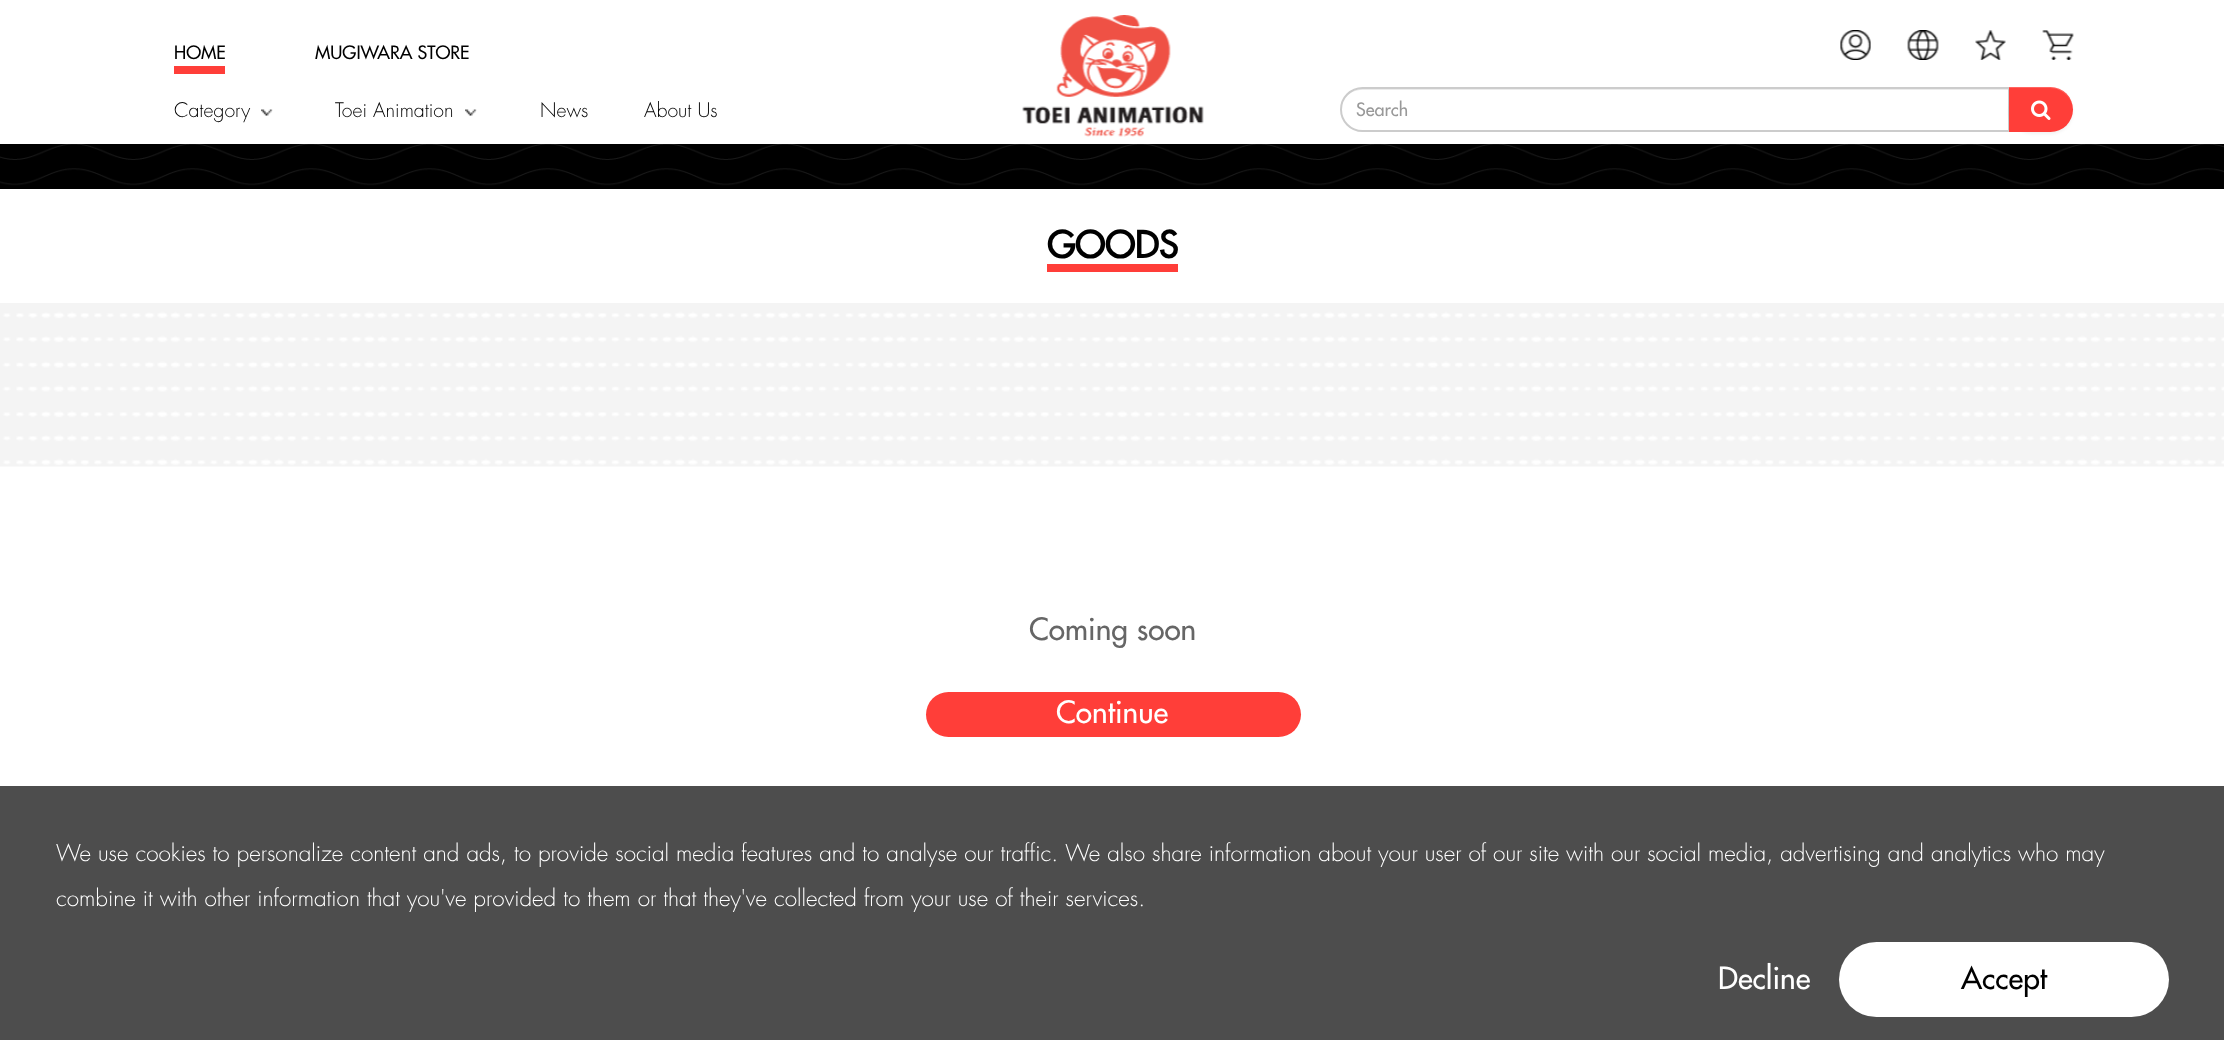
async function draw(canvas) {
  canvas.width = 2224;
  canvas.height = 1040;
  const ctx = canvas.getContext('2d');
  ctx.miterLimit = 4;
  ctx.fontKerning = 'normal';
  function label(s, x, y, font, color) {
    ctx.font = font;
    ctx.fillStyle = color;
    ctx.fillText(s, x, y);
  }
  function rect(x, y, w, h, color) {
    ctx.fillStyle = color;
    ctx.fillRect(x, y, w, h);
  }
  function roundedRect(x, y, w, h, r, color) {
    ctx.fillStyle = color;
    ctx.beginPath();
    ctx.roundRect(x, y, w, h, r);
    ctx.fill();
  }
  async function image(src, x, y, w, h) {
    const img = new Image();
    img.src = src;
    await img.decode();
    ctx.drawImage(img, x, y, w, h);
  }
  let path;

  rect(0, 0, 2224, 1040, '#fff');
  label('HOME', 174, 59, '500 18px Futura', '#000');
  rect(174, 66, 51, 8, '#ff3e39');
  label('MUGIWARA STORE', 315, 59, '500 18px Futura', '#000');
  await image('assets/img1.png', 261, 109, 12, 7);
  label('Category', 174, 117, '300 19.5px Futura', '#000');
  await image('assets/img1.png', 465, 109, 12, 7);
  label('Toei Animation', 335, 117, '300 19.5px Futura', '#000');
  label('News', 540, 117, '300 19.5px Futura', '#000');
  label('About Us', 644, 117, '300 19.5px Futura', '#000');
  await image('assets/img2.png', 1022, 15, 182, 122);
  await image('assets/img3.png', 1840, 30, 31, 30);
  await image('assets/img4.png', 1907, 30, 32, 30);
  await image('assets/img5.png', 1975, 30, 31, 30);
  await image('assets/img6.png', 2042, 30, 32, 30);
  ctx.fillStyle = '#ececec';
  path = new Path2D('M1362 90H2008V131H2009V89H1362C1350 89 1341 98 1341 110C1341 99 1350 90 1362 90Z');
  ctx.fill(path);
  ctx.beginPath();
  ctx.roundRect(1341, 88, 668, 43, [21.5, 0, 0, 21.5]);
  ctx.strokeStyle = '#ccc';
  ctx.lineWidth = 2;
  ctx.stroke();
  label('Search', 1356, 116, '500 18px Futura', '#999');
  ctx.fillStyle = '#0000000d';
  ctx.filter = 'blur(1.5px)';
  ctx.beginPath();
  ctx.roundRect(2009, 89, 64, 45, 22.5);
  ctx.fill();
  ctx.filter = 'none';
  ctx.fillStyle = '#ff3e39';
  ctx.beginPath();
  ctx.roundRect(2009, 87, 64, 45, [0, 22.5, 22.5, 0]);
  ctx.fill();
  ctx.fillStyle = '#ffffff33';
  path = new Path2D('M2009 87V88H2050C2063 88 2073 99 2073 110C2073 98 2063 87 2050 87Z');
  ctx.fill(path);
  await image('assets/img7.png', 2031, 100, 20, 20);
  await image('assets/img8.png', 0, 144, 2224, 45);
  label('GOODS', 1047, 258, 'bold 36px Futura', '#000');
  rect(1047, 264, 131, 8, '#ff3e39');
  await image('assets/img9.png', 0, 303, 2224, 164);
  label('Coming soon', 1029, 640, '500 30px Futura', '#666');
  roundedRect(926, 692, 375, 45, 22.5, '#ff3e39');
  label('Continue', 1056, 723, '500 30px Futura', '#fff');
  rect(0, 786, 2224, 254, '#4d4d4d');
  label('We use cookies to personalize content and ads, to provide social media features and to analyse our traffic. We also share information about your user of our site with our social media, advertising and analytics who may', 56, 861, '300 22.5px Futura', '#fff');
  label('combine it with other information that you\'ve provided to them or that they\'ve collected from your use of their services.', 56, 906, '300 22.5px Futura', '#fff');
  label('Decline', 1718, 989, '500 30px Futura', '#fff');
  roundedRect(1839, 942, 330, 75, 37.5, '#fff');
  label('Accept', 1961, 989, '500 30px Futura', '#000');
}

draw(document.querySelector('canvas'));
